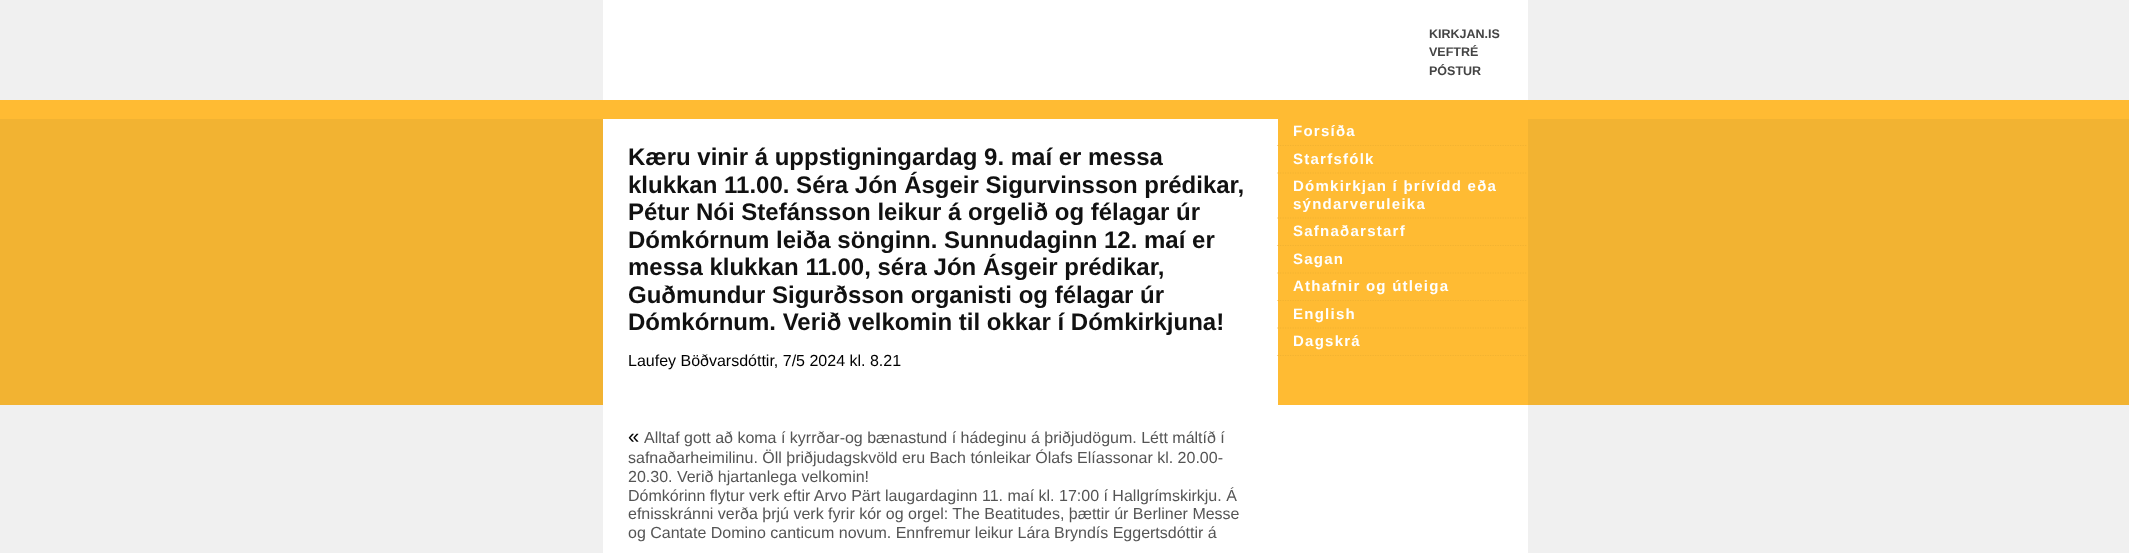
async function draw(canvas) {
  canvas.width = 2129;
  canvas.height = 553;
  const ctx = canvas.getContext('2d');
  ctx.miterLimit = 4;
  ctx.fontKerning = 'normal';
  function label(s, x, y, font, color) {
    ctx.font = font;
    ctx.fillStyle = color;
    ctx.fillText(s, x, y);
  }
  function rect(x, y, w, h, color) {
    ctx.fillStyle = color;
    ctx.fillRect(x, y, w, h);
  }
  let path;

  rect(0, 0, 2129, 553, '#f0f0f0');
  rect(603, 0, 925, 100, '#fff');
  label('KIRKJAN.IS', 1429, 38, 'bold 12.5px Liberation Sans', '#444');
  label('VEFTRÉ', 1429, 56, 'bold 12.5px Liberation Sans', '#444');
  label('PÓSTUR', 1429, 75, 'bold 12.5px Liberation Sans', '#444');
  rect(603, 405, 925, 148, '#fff');
  rect(0, 119, 2129, 286, '#f2b332');
  rect(603, 119, 675, 286, '#fff');
  label('Kæru vinir á uppstigningardag 9. maí er messa', 628, 165, 'bold 24px Liberation Sans', '#111');
  label('klukkan 11.00. Séra Jón Ásgeir Sigurvinsson prédikar,', 628, 193, 'bold 24px Liberation Sans', '#111');
  label('Pétur Nói Stefánsson leikur á orgelið og félagar úr', 628, 220, 'bold 24px Liberation Sans', '#111');
  label('Dómkórnum leiða sönginn. Sunnudaginn 12. maí er', 628, 248, 'bold 24px Liberation Sans', '#111');
  label('messa klukkan 11.00, séra Jón Ásgeir prédikar,', 628, 275, 'bold 24px Liberation Sans', '#111');
  label('Guðmundur Sigurðsson organisti og félagar úr', 628, 303, 'bold 24px Liberation Sans', '#111');
  label('Dómkórnum. Verið velkomin til okkar í Dómkirkjuna!', 628, 330, 'bold 24px Liberation Sans', '#111');
  label('Laufey Böðvarsdóttir, 7/5 2024 kl. 8.21', 628, 366, '16px Liberation Sans', '#000');
  label('«', 628, 443, '20px Liberation Sans', '#000');
  label('Alltaf gott að koma í kyrrðar-og bænastund í hádeginu á þriðjudögum. Létt máltíð í', 644, 443, '16px Liberation Sans', '#555');
  label('safnaðarheimilinu. Öll þriðjudagskvöld eru Bach tónleikar Ólafs Elíassonar kl. 20.00-', 628, 463, '16px Liberation Sans', '#555');
  label('20.30. Verið hjartanlega velkomin!', 628, 482, '16px Liberation Sans', '#555');
  label('Dómkórinn flytur verk eftir Arvo Pärt laugardaginn 11. maí kl. 17:00 í Hallgrímskirkju. Á', 628, 501, '16px Liberation Sans', '#555');
  label('efnisskránni verða þrjú verk fyrir kór og orgel: The Beatitudes, þættir úr Berliner Messe', 628, 519, '16px Liberation Sans', '#555');
  label('og Cantate Domino canticum novum. Ennfremur leikur Lára Bryndís Eggertsdóttir á', 628, 538, '16px Liberation Sans', '#555');
  rect(0, 100, 2129, 19, '#fb3');
  rect(1278, 119, 250, 286, '#fb3');
  path = new Path2D('M1277.5 145.5H1527.5');
  ctx.strokeStyle = '#f2b332';
  ctx.lineWidth = 1.2;
  ctx.setLineDash([1.25, 1.25]);
  ctx.stroke(path);
  ctx.letterSpacing = '1.25px';
  label('Forsíða', 1293, 136, 'bold 15px Liberation Sans', '#fff');
  path = new Path2D('M1277.5 173H1527.5');
  ctx.stroke(path);
  label('Starfsfólk', 1293, 164, 'bold 15px Liberation Sans', '#fff');
  path = new Path2D('M1277.5 218H1527.5');
  ctx.stroke(path);
  label('Dómkirkjan í þrívídd eða', 1293, 191, 'bold 15px Liberation Sans', '#fff');
  label('sýndarveruleika', 1293, 209, 'bold 15px Liberation Sans', '#fff');
  path = new Path2D('M1277.5 245.5H1527.5');
  ctx.stroke(path);
  label('Safnaðarstarf', 1293, 236, 'bold 15px Liberation Sans', '#fff');
  path = new Path2D('M1277.5 273H1527.5');
  ctx.stroke(path);
  label('Sagan', 1293, 264, 'bold 15px Liberation Sans', '#fff');
  path = new Path2D('M1277.5 300.5H1527.5');
  ctx.stroke(path);
  label('Athafnir og útleiga', 1293, 291, 'bold 15px Liberation Sans', '#fff');
  path = new Path2D('M1277.5 328H1527.5');
  ctx.stroke(path);
  label('English', 1293, 319, 'bold 15px Liberation Sans', '#fff');
  path = new Path2D('M1277.5 355.5H1527.5');
  ctx.stroke(path);
  label('Dagskrá', 1293, 346, 'bold 15px Liberation Sans', '#fff');
}

draw(document.querySelector('canvas'));
